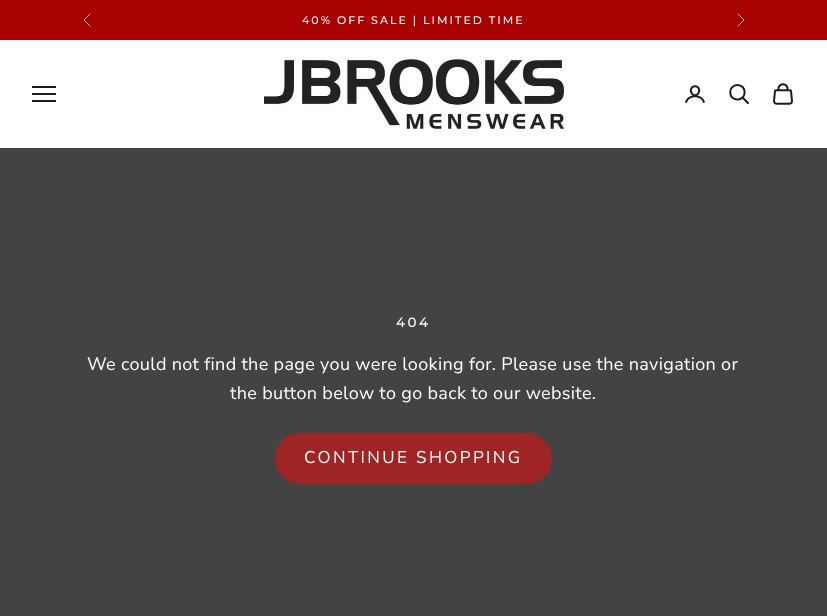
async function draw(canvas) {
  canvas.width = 827;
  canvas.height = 616;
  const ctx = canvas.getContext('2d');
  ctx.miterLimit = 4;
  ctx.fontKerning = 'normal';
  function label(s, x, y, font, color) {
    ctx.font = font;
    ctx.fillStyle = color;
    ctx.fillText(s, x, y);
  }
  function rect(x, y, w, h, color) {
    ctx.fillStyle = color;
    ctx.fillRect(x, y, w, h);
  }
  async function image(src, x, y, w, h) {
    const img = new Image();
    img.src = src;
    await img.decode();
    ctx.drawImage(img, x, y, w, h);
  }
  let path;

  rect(0, 0, 827, 616, '#434343');
  rect(0, 0, 827, 40, '#a90000');
  path = new Path2D('M90 14L84 20L90 26');
  ctx.strokeStyle = '#fff';
  ctx.lineWidth = 0.8;
  ctx.lineCap = 'square';
  ctx.stroke(path);
  ctx.letterSpacing = '2px';
  label('40% OFF SALE | LIMITED TIME', 302, 24, '500 11px Montserrat', '#fff');
  path = new Path2D('M738 26L744 20L738 14');
  ctx.stroke(path);
  rect(0, 40, 827, 108, '#fff');
  path = new Path2D('M33 101H55M33 94H55M33 87H55');
  ctx.strokeStyle = '#1c1c1c';
  ctx.lineWidth = 2;
  ctx.stroke(path);
  await image('assets/img1.png', 264, 59, 300, 70);
  await image('assets/img2.png', 685, 85, 20, 18);
  path = new Path2D('M737.5 85C727.5 85 728 100 737.5 99.5C747 99.5 747 85 737.5 85Z');
  ctx.lineCap = 'butt';
  ctx.stroke(path);
  path = new Path2D('M743 98L748 103');
  ctx.lineCap = 'round';
  ctx.stroke(path);
  await image('assets/img3.png', 773, 83, 20, 22);
  ctx.letterSpacing = '2.5px';
  label('404', 396, 327, '500 13.5px Montserrat', '#fff');
  ctx.letterSpacing = '0.35px';
  label('We could not find the page you were looking for. Please use the navigation or', 87, 370, '18px Nunito Sans', '#fff');
  label('the button below to go back to our website.', 230, 399, '18px Nunito Sans', '#fff');
  ctx.save();
  ctx.beginPath();
  ctx.roundRect(275, 433, 277, 51, 25.5);
  ctx.clip();
  rect(275, 434, 276, 49, '#9f2424');
  ctx.restore();
  ctx.beginPath();
  ctx.roundRect(275.5, 433.5, 276, 50, 25);
  ctx.strokeStyle = '#9f2424';
  ctx.lineWidth = 1;
  ctx.stroke();
  ctx.letterSpacing = '2.4px';
  label('CONTINUE SHOPPING', 304, 463, '17px Nunito Sans', '#fff');
}

draw(document.querySelector('canvas'));
